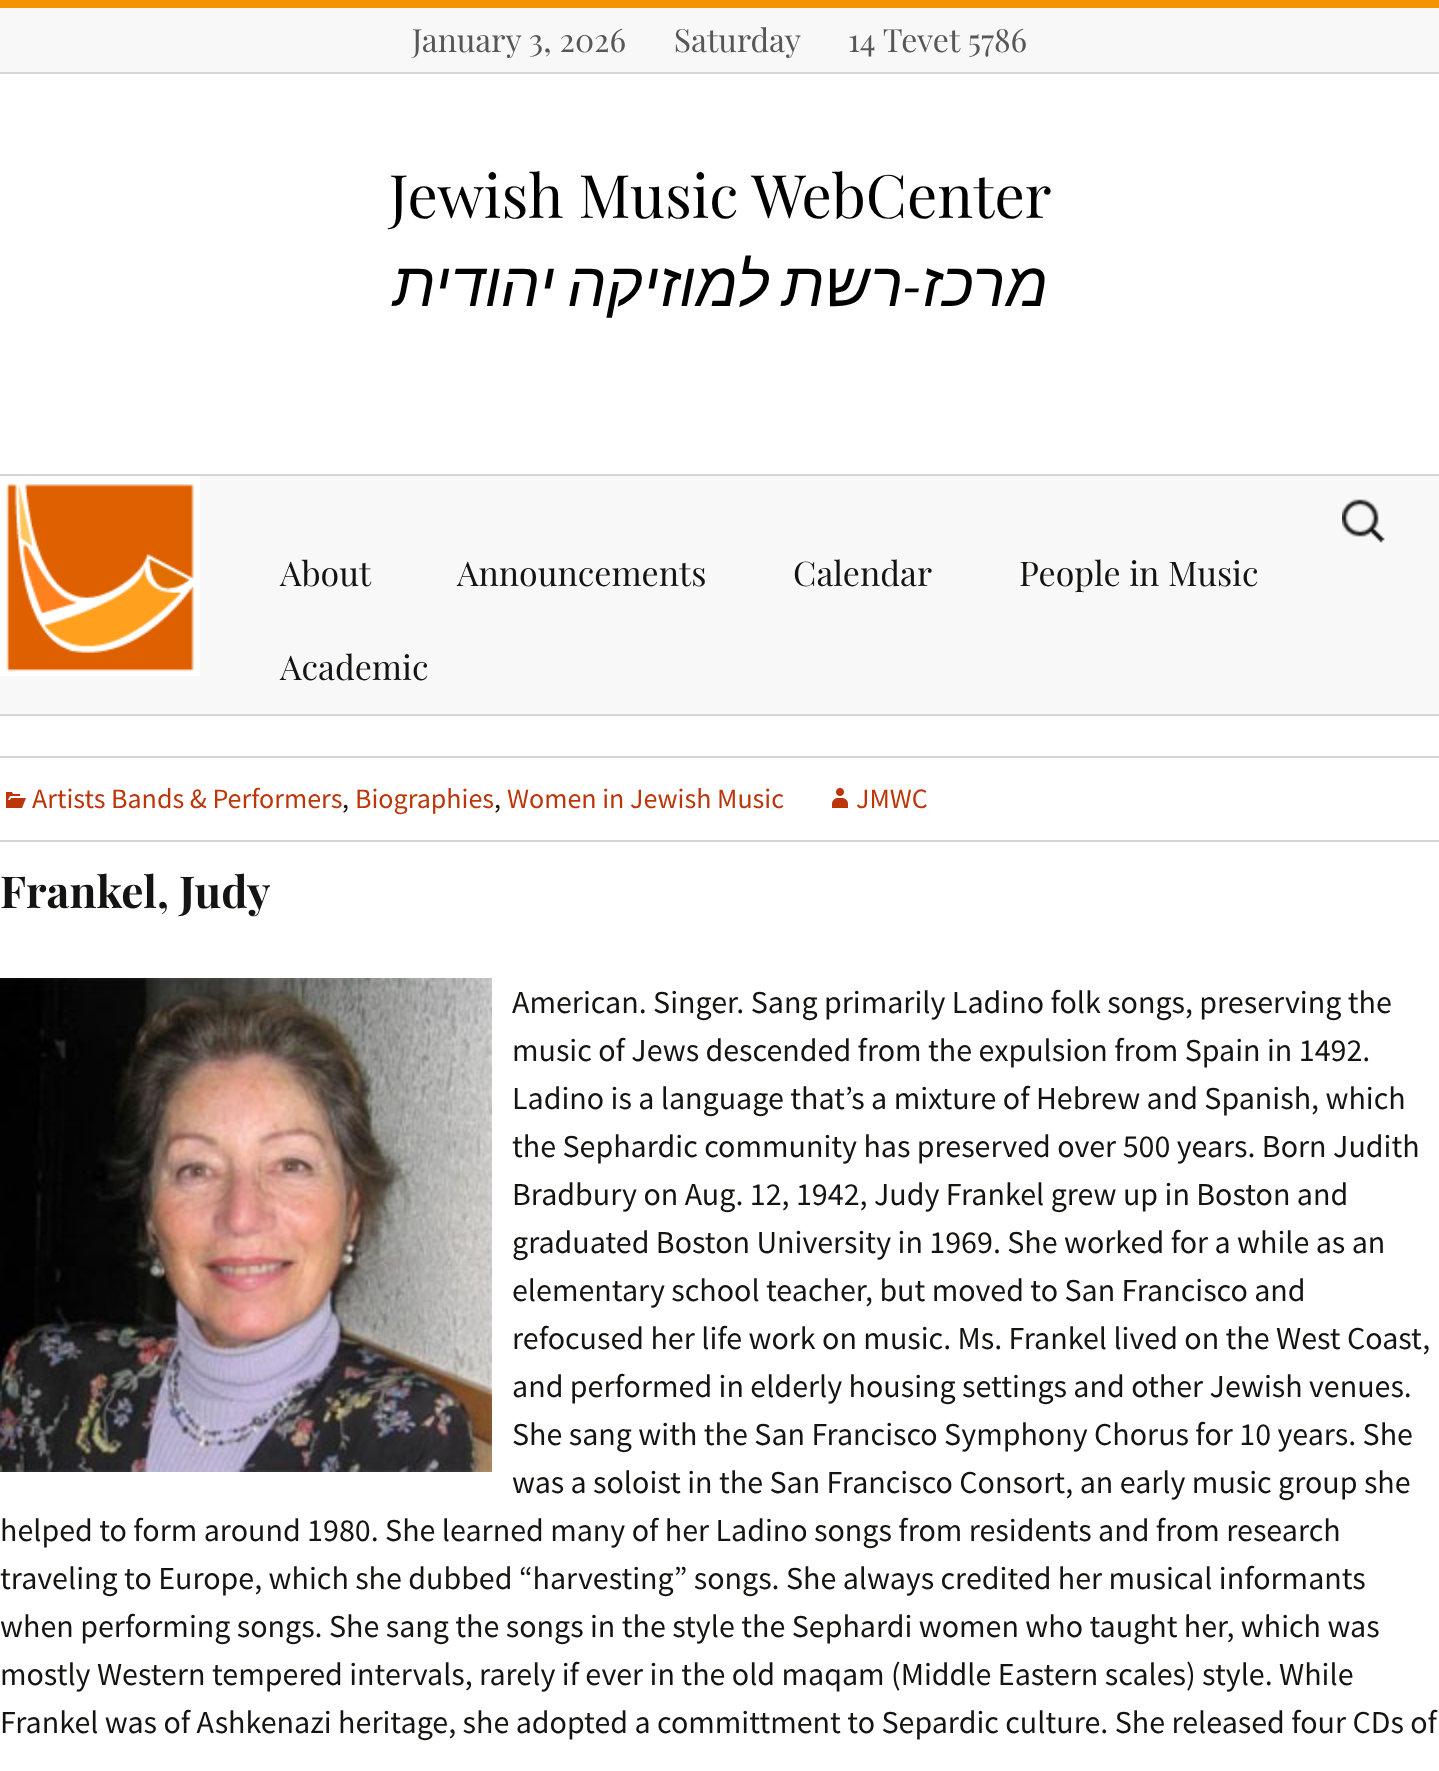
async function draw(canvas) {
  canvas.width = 1439;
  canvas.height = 1771;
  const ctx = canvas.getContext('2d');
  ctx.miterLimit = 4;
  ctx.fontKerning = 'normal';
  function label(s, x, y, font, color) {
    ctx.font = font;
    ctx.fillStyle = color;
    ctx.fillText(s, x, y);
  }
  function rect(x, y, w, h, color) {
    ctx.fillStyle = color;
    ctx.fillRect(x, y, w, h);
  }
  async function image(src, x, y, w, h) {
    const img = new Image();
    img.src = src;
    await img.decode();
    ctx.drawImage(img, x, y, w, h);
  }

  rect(0, 0, 1439, 1771, '#fff');
  rect(0, 8, 1439, 64, '#f9f8f8');
  rect(0, 0, 1439, 8, '#f49400');
  rect(0, 72, 1439, 2, '#d6d6d6');
  label('January 3, 2026      Saturday      14 Tevet 5786', 412, 52, '32px Playfair Display', '#575757');
  label('Jewish Music WebCenter', 389, 218, '60px Playfair Display', '#000');
  ctx.wordSpacing = '-5px';
  ctx.direction = 'rtl';
  label('רשת למוזיקה יהודית', 903, 306, 'italic 62px Liberation Sans', '#000');
  ctx.wordSpacing = '0px';
  label('-', 921, 306, 'italic 62px Source Sans Pro', '#000');
  label('מרכז', 1048, 306, 'italic 62px Liberation Sans', '#000');
  rect(0, 476, 1439, 238, '#f9f8f8');
  rect(0, 474, 1439, 2, '#d6d6d6');
  rect(0, 714, 1439, 2, '#d6d6d6');
  await image('assets/img1.png', 0, 476, 200, 200);
  await image('assets/img2.png', 1342, 499, 43, 44);
  ctx.direction = 'ltr';
  label('About', 280, 586, '34px Playfair Display', '#141412');
  label('Announcements', 457, 586, '34px Playfair Display', '#141412');
  label('Calendar', 793, 586, '34px Playfair Display', '#141412');
  label('People in Music', 1019, 586, '34px Playfair Display', '#141412');
  label('Academic', 280, 680, '34px Playfair Display', '#141412');
  rect(0, 756, 1439, 2, '#d3d3d3');
  rect(0, 840, 1439, 2, '#d3d3d3');
  await image('assets/img3.png', 6, 792, 20, 16);
  label('Artists Bands & Performers', 32, 808, '28px Source Sans Pro', '#bc360a');
  label(',', 342, 808, '28px Source Sans Pro', '#141412');
  label('Biographies', 355, 808, '28px Source Sans Pro', '#bc360a');
  label(',', 494, 808, '28px Source Sans Pro', '#141412');
  label('Women in Jewish Music', 507, 808, '28px Source Sans Pro', '#bc360a');
  await image('assets/img4.png', 832, 788, 16, 20);
  label('JMWC', 856, 808, '28px Source Sans Pro', '#bc360a');
  label('Frankel, Judy', 0, 908, 'bold 44px Playfair Display', '#141412');
  await image('assets/img5.png', 0, 978, 492, 494);
  label('American. Singer. Sang primarily Ladino folk songs, preserving the', 512, 1013, '32px Source Sans Pro', '#141412');
  label('music of Jews descended from the expulsion from Spain in 1492.', 512, 1061, '32px Source Sans Pro', '#141412');
  label('Ladino is a language that’s a mixture of Hebrew and Spanish, which', 512, 1109, '32px Source Sans Pro', '#141412');
  label('the Sephardic community has preserved over 500 years. Born Judith', 512, 1157, '32px Source Sans Pro', '#141412');
  label('Bradbury on Aug. 12, 1942, Judy Frankel grew up in Boston and', 512, 1205, '32px Source Sans Pro', '#141412');
  label('graduated Boston University in 1969. She worked for a while as an', 512, 1253, '32px Source Sans Pro', '#141412');
  label('elementary school teacher, but moved to San Francisco and', 512, 1301, '32px Source Sans Pro', '#141412');
  label('refocused her life work on music. Ms. Frankel lived on the West Coast,', 512, 1349, '32px Source Sans Pro', '#141412');
  label('and performed in elderly housing settings and other Jewish venues.', 512, 1397, '32px Source Sans Pro', '#141412');
  label('She sang with the San Francisco Symphony Chorus for 10 years. She', 512, 1445, '32px Source Sans Pro', '#141412');
  label('was a soloist in the San Francisco Consort, an early music group she', 512, 1493, '32px Source Sans Pro', '#141412');
  label('helped to form around 1980. She learned many of her Ladino songs from residents and from research', 0, 1541, '32px Source Sans Pro', '#141412');
  label('traveling to Europe, which she dubbed “harvesting” songs. She always credited her musical informants', 0, 1589, '32px Source Sans Pro', '#141412');
  label('when performing songs. She sang the songs in the style the Sephardi women who taught her, which was', 0, 1637, '32px Source Sans Pro', '#141412');
  label('mostly Western tempered intervals, rarely if ever in the old maqam (Middle Eastern scales) style. While', 0, 1685, '32px Source Sans Pro', '#141412');
  label('Frankel was of Ashkenazi heritage, she adopted a committment to Separdic culture. She released four CDs of', 0, 1733, '32px Source Sans Pro', '#141412');
}

draw(document.querySelector('canvas'));
